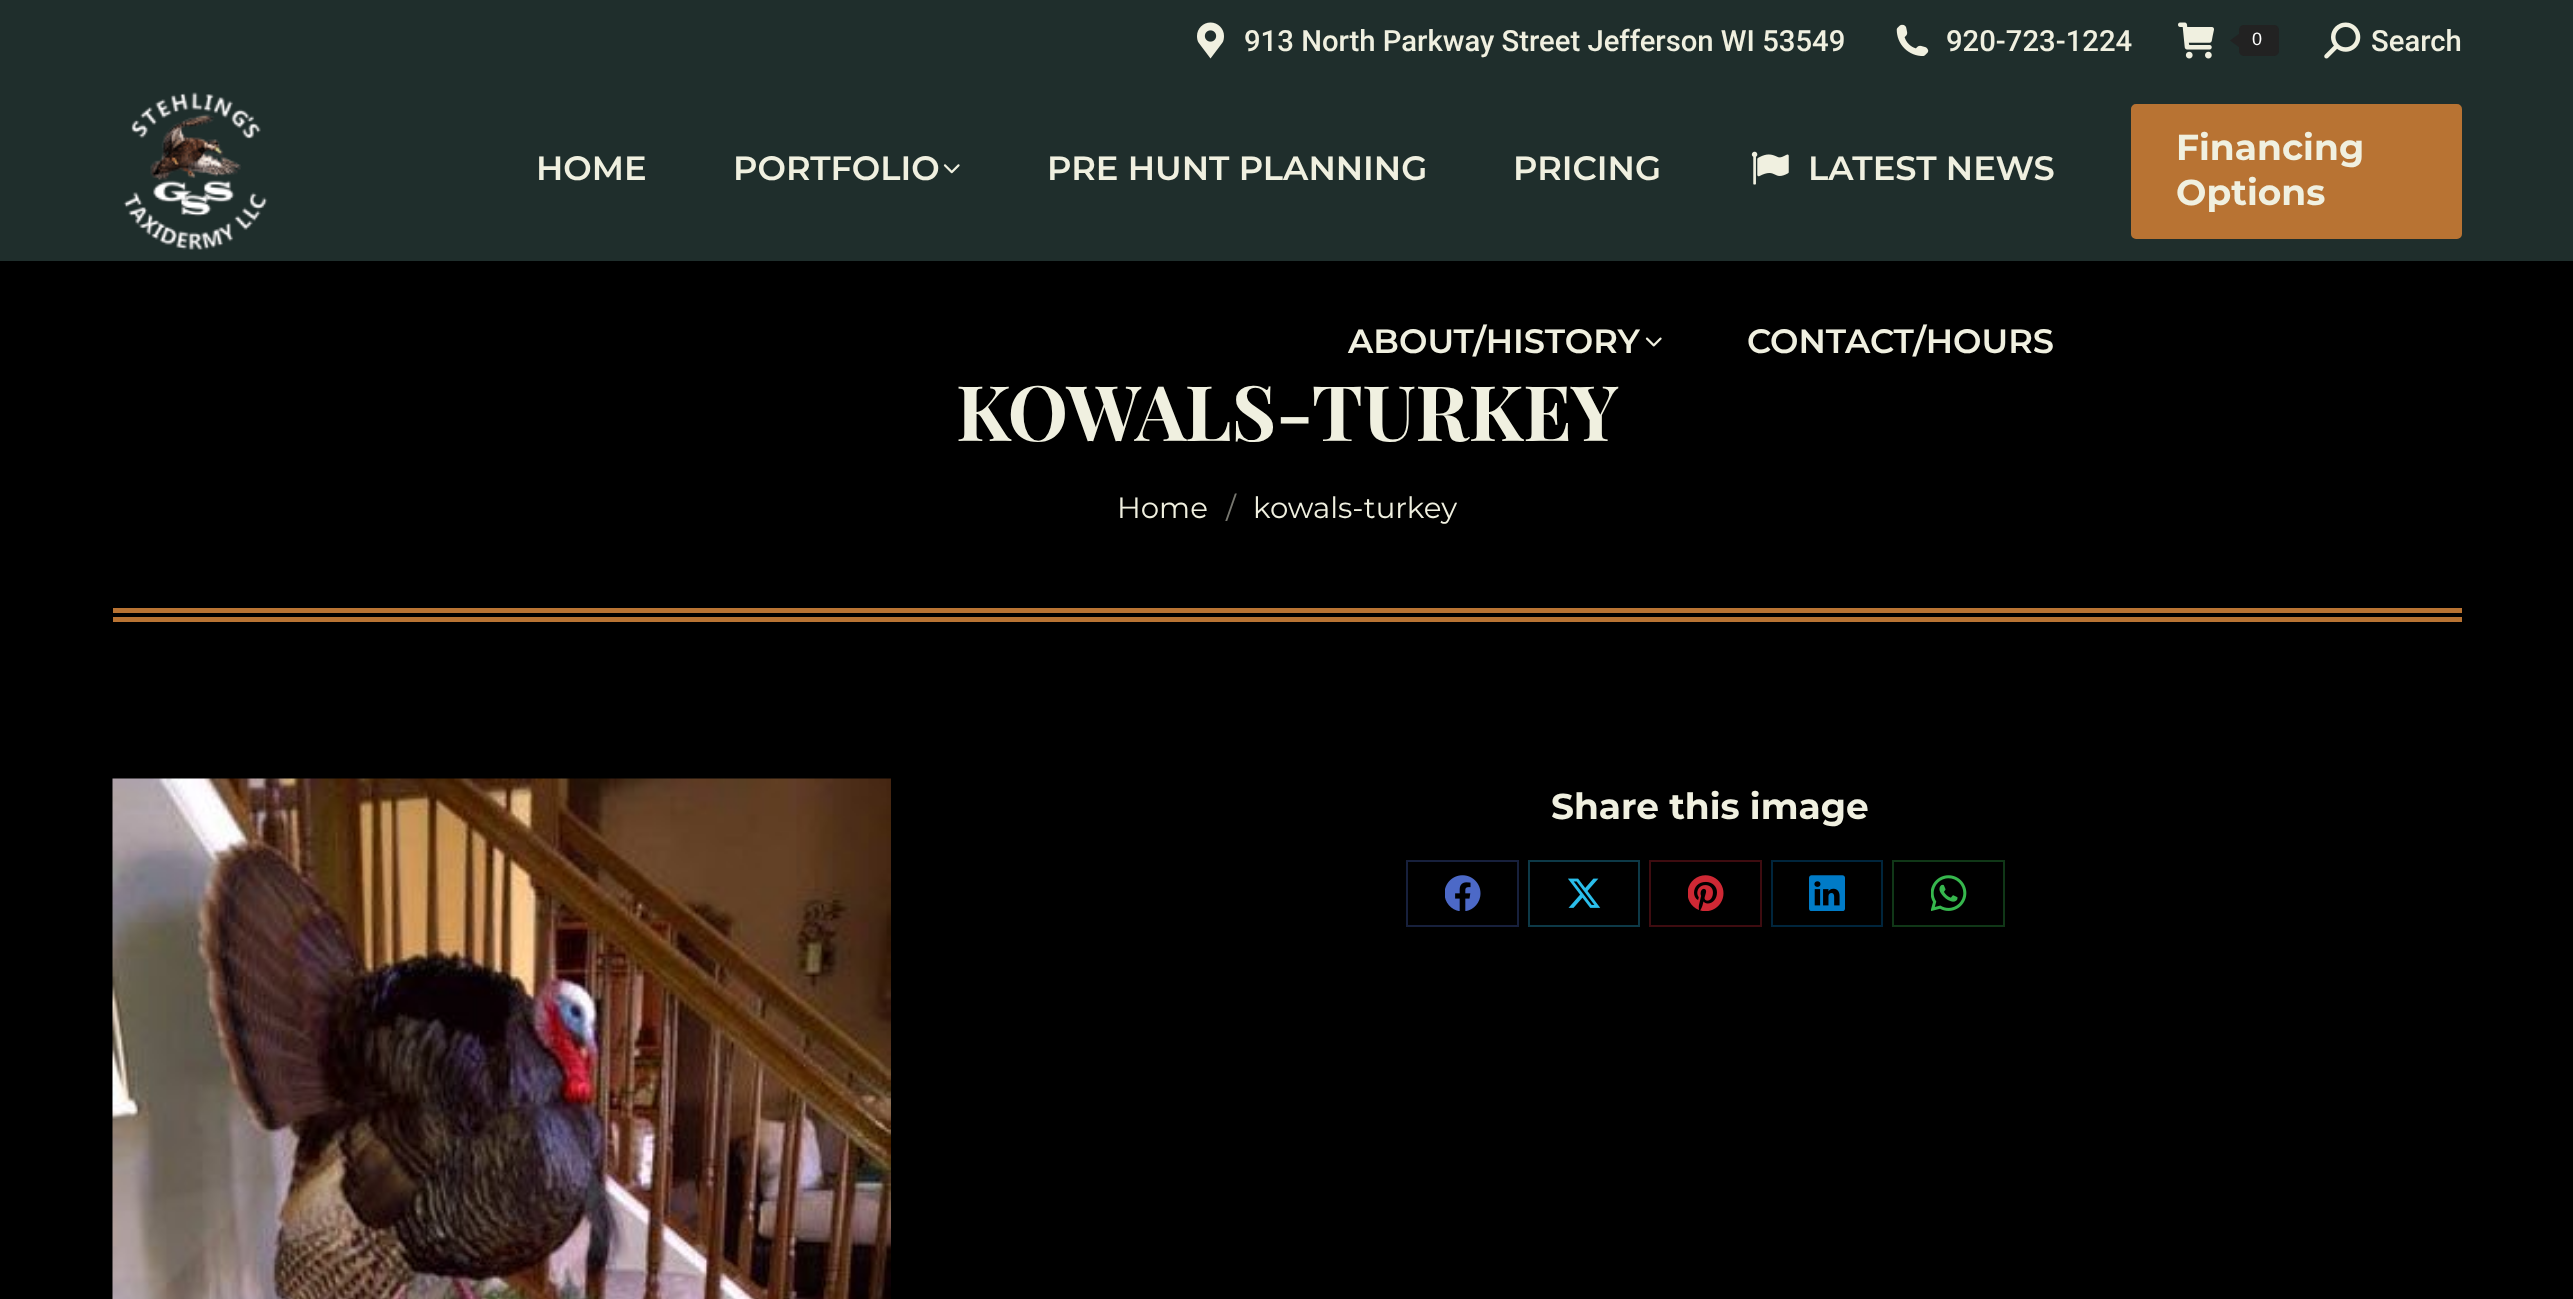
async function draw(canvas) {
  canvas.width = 2573;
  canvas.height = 1299;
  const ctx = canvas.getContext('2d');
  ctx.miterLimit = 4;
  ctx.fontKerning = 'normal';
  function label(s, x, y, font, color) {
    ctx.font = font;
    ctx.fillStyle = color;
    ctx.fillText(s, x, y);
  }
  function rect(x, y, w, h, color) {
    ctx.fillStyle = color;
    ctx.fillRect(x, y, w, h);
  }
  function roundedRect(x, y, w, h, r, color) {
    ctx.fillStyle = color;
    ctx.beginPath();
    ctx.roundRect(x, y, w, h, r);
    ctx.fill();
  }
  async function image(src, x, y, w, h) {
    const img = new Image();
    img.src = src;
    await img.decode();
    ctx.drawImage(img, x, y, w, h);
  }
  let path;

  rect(0, 0, 2573, 1299, '#000');
  rect(0, 0, 2573, 261, '#1f2e2c');
  await image('assets/img1.png', 1197, 22, 27, 37);
  label('913 North Parkway Street Jefferson WI 53549', 1244, 51, '500 29.25px Roboto', '#f0f0e0');
  await image('assets/img2.png', 1896, 24, 33, 32);
  label('920-723-1224', 1946, 51, '500 29.25px Roboto', '#f0f0e0');
  await image('assets/img3.png', 2178, 22, 36, 37);
  roundedRect(2239, 25, 40, 31, 5, '#222');
  path = new Path2D('M2239 34V47L2230 40.5Z');
  ctx.fill(path);
  label('0', 2252, 45, '18px Liberation Sans', '#fff');
  await image('assets/img4.png', 2324, 22, 37, 37);
  label('Search', 2371, 51, '500 29.25px Roboto', '#f0f0e0');
  await image('assets/img5.png', 123, 92, 145, 158);
  label('HOME', 536, 180, '600 33.75px Montserrat', '#f0f0e0');
  label('PORTFOLIO', 733, 180, '600 33.75px Montserrat', '#f0f0e0');
  await image('assets/img6.png', 943, 164, 17, 10);
  label('PRE HUNT PLANNING', 1047, 180, '600 33.75px Montserrat', '#f0f0e0');
  label('PRICING', 1513, 180, '600 33.75px Montserrat', '#f0f0e0');
  await image('assets/img7.png', 1751, 151, 38, 34);
  label('LATEST NEWS', 1808, 180, '600 33.75px Montserrat', '#f0f0e0');
  label('ABOUT/HISTORY', 1348, 353, '600 33.75px Montserrat', '#f0f0e0');
  await image('assets/img8.png', 1645, 337, 17, 10);
  label('CONTACT/HOURS', 1747, 353, '600 33.75px Montserrat', '#f0f0e0');
  ctx.fillStyle = '#b87333';
  ctx.beginPath();
  ctx.roundRect(2135.5, 108.5, 322, 126, 0.5);
  ctx.fill();
  ctx.strokeStyle = '#b87333';
  ctx.lineWidth = 9;
  ctx.stroke();
  label('Financing', 2176, 160, 'bold 36px Montserrat', '#f0f0e0');
  label('Options', 2176, 205, 'bold 36px Montserrat', '#f0f0e0');
  label('KOWALS-TURKEY', 956, 441, 'bold 76.5px Playfair Display', '#f0f0e0');
  label('Home', 1117, 518, '29.25px Montserrat', '#f0f0e0');
  label('/', 1226, 518, '29.25px Montserrat', '#787870');
  label('kowals-turkey', 1253, 518, '29.25px Montserrat', '#f0f0e0');
  rect(113, 608, 2349, 5, '#b87333');
  rect(113, 617, 2349, 5, '#b87333');
  await image('assets/img9.png', 112, 778, 779, 521);
  label('Share this image', 1551, 819, 'bold 36px Montserrat', '#f0f0e0');
  ctx.strokeStyle = '#17203c';
  ctx.lineWidth = 2;
  ctx.strokeRect(1407, 861, 111, 65);
  await image('assets/img10.png', 1445, 875, 36, 36);
  ctx.strokeStyle = '#0d3947';
  ctx.strokeRect(1529, 861, 110, 65);
  await image('assets/img11.png', 1568, 878, 33, 30);
  ctx.strokeStyle = '#3e0c10';
  ctx.strokeRect(1650, 861, 111, 65);
  await image('assets/img12.png', 1688, 875, 36, 36);
  ctx.strokeStyle = '#00253c';
  ctx.strokeRect(1772, 861, 110, 65);
  await image('assets/img13.png', 1809, 875, 36, 36);
  ctx.strokeStyle = '#103717';
  ctx.strokeRect(1893, 861, 111, 65);
  await image('assets/img14.png', 1931, 875, 36, 36);
}

draw(document.querySelector('canvas'));
